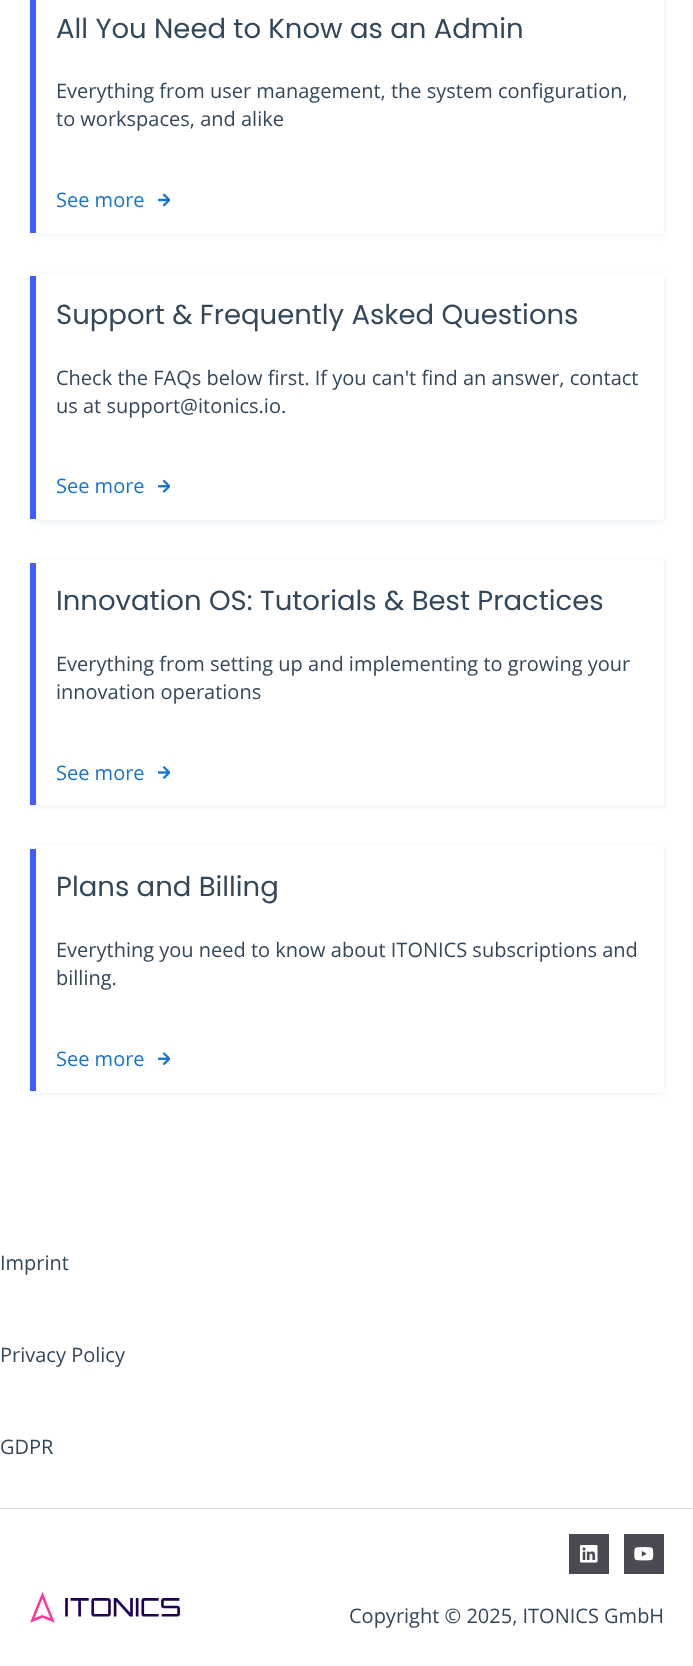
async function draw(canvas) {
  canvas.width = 693;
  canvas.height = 1666;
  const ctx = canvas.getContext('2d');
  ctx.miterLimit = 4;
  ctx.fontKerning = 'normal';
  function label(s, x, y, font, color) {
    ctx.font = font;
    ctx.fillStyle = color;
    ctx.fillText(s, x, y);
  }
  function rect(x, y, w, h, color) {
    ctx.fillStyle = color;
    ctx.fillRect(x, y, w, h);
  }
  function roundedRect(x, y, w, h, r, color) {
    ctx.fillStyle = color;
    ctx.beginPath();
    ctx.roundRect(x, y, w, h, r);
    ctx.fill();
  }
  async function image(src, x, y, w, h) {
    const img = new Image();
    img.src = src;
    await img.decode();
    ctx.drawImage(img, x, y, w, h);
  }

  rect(0, 0, 693, 1666, '#fff');
  ctx.fillStyle = '#e2ebf480';
  ctx.filter = 'blur(2.5px)';
  ctx.beginPath();
  ctx.roundRect(30, -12, 636, 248, 5);
  ctx.fill();
  ctx.filter = 'none';
  roundedRect(30, -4, 634, 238, 4, '#fff');
  rect(30, 0, 6, 233, '#405dff');
  label('All You Need to Know as an Admin', 56, 38, '27.5px Poppins', '#33475b');
  label('Everything from user management, the system configuration,', 56, 98, '20px Open Sans', '#33475b');
  label('to workspaces, and alike', 56, 126, '20px Open Sans', '#33475b');
  label('See more', 56, 207, '20px Open Sans', '#1773d1');
  await image('assets/img1.png', 158, 193, 12, 14);
  ctx.fillStyle = '#e2ebf480';
  ctx.filter = 'blur(2.5px)';
  ctx.beginPath();
  ctx.roundRect(30, 274, 636, 249, 5);
  ctx.fill();
  ctx.filter = 'none';
  roundedRect(30, 274, 634, 246, 4, '#fff');
  rect(30, 276, 6, 243, '#405dff');
  label('Support & Frequently Asked Questions', 56, 324, '27.5px Poppins', '#33475b');
  label('Check the FAQs below first. If you can\'t find an answer, contact', 56, 385, '20px Open Sans', '#33475b');
  label('us at support@itonics.io.', 56, 413, '20px Open Sans', '#33475b');
  label('See more', 56, 493, '20px Open Sans', '#1773d1');
  await image('assets/img2.png', 158, 479, 12, 14);
  ctx.fillStyle = '#e2ebf480';
  ctx.filter = 'blur(2.5px)';
  ctx.beginPath();
  ctx.roundRect(30, 560, 636, 249, 5);
  ctx.fill();
  ctx.filter = 'none';
  roundedRect(30, 560, 634, 246, 4, '#fff');
  rect(30, 563, 6, 242, '#405dff');
  label('Innovation OS: Tutorials & Best Practices', 56, 610, '27.5px Poppins', '#33475b');
  label('Everything from setting up and implementing to growing your', 56, 671, '20px Open Sans', '#33475b');
  label('innovation operations', 56, 699, '20px Open Sans', '#33475b');
  label('See more', 56, 780, '20px Open Sans', '#1773d1');
  await image('assets/img3.png', 158, 766, 12, 13);
  ctx.fillStyle = '#e2ebf480';
  ctx.filter = 'blur(2.5px)';
  ctx.beginPath();
  ctx.roundRect(30, 846, 636, 249, 5);
  ctx.fill();
  ctx.filter = 'none';
  roundedRect(30, 846, 634, 247, 4, '#fff');
  rect(30, 849, 6, 242, '#405dff');
  label('Plans and Billing', 56, 896, '27.5px Poppins', '#33475b');
  label('Everything you need to know about ITONICS subscriptions and', 56, 957, '20px Open Sans', '#33475b');
  label('billing.', 56, 985, '20px Open Sans', '#33475b');
  label('See more', 56, 1066, '20px Open Sans', '#1773d1');
  await image('assets/img4.png', 158, 1052, 12, 14);
  label('Imprint', 0, 1270, '20px Open Sans', '#33475b');
  label('Privacy Policy', 0, 1362, '20px Open Sans', '#33475b');
  label('GDPR', 0, 1454, '20px Open Sans', '#33475b');
  rect(0, 1508, 693, 1, '#e0e0e0');
  await image('assets/img5.png', 30, 1592, 150, 31);
  rect(569, 1534, 40, 40, '#494a52');
  await image('assets/img6.png', 580, 1545, 18, 18);
  rect(624, 1534, 40, 40, '#494a52');
  await image('assets/img7.png', 634, 1547, 20, 14);
  label('Copyright © 2025, ITONICS GmbH', 349, 1623, '20px Open Sans', '#33475b');
}

draw(document.querySelector('canvas'));
